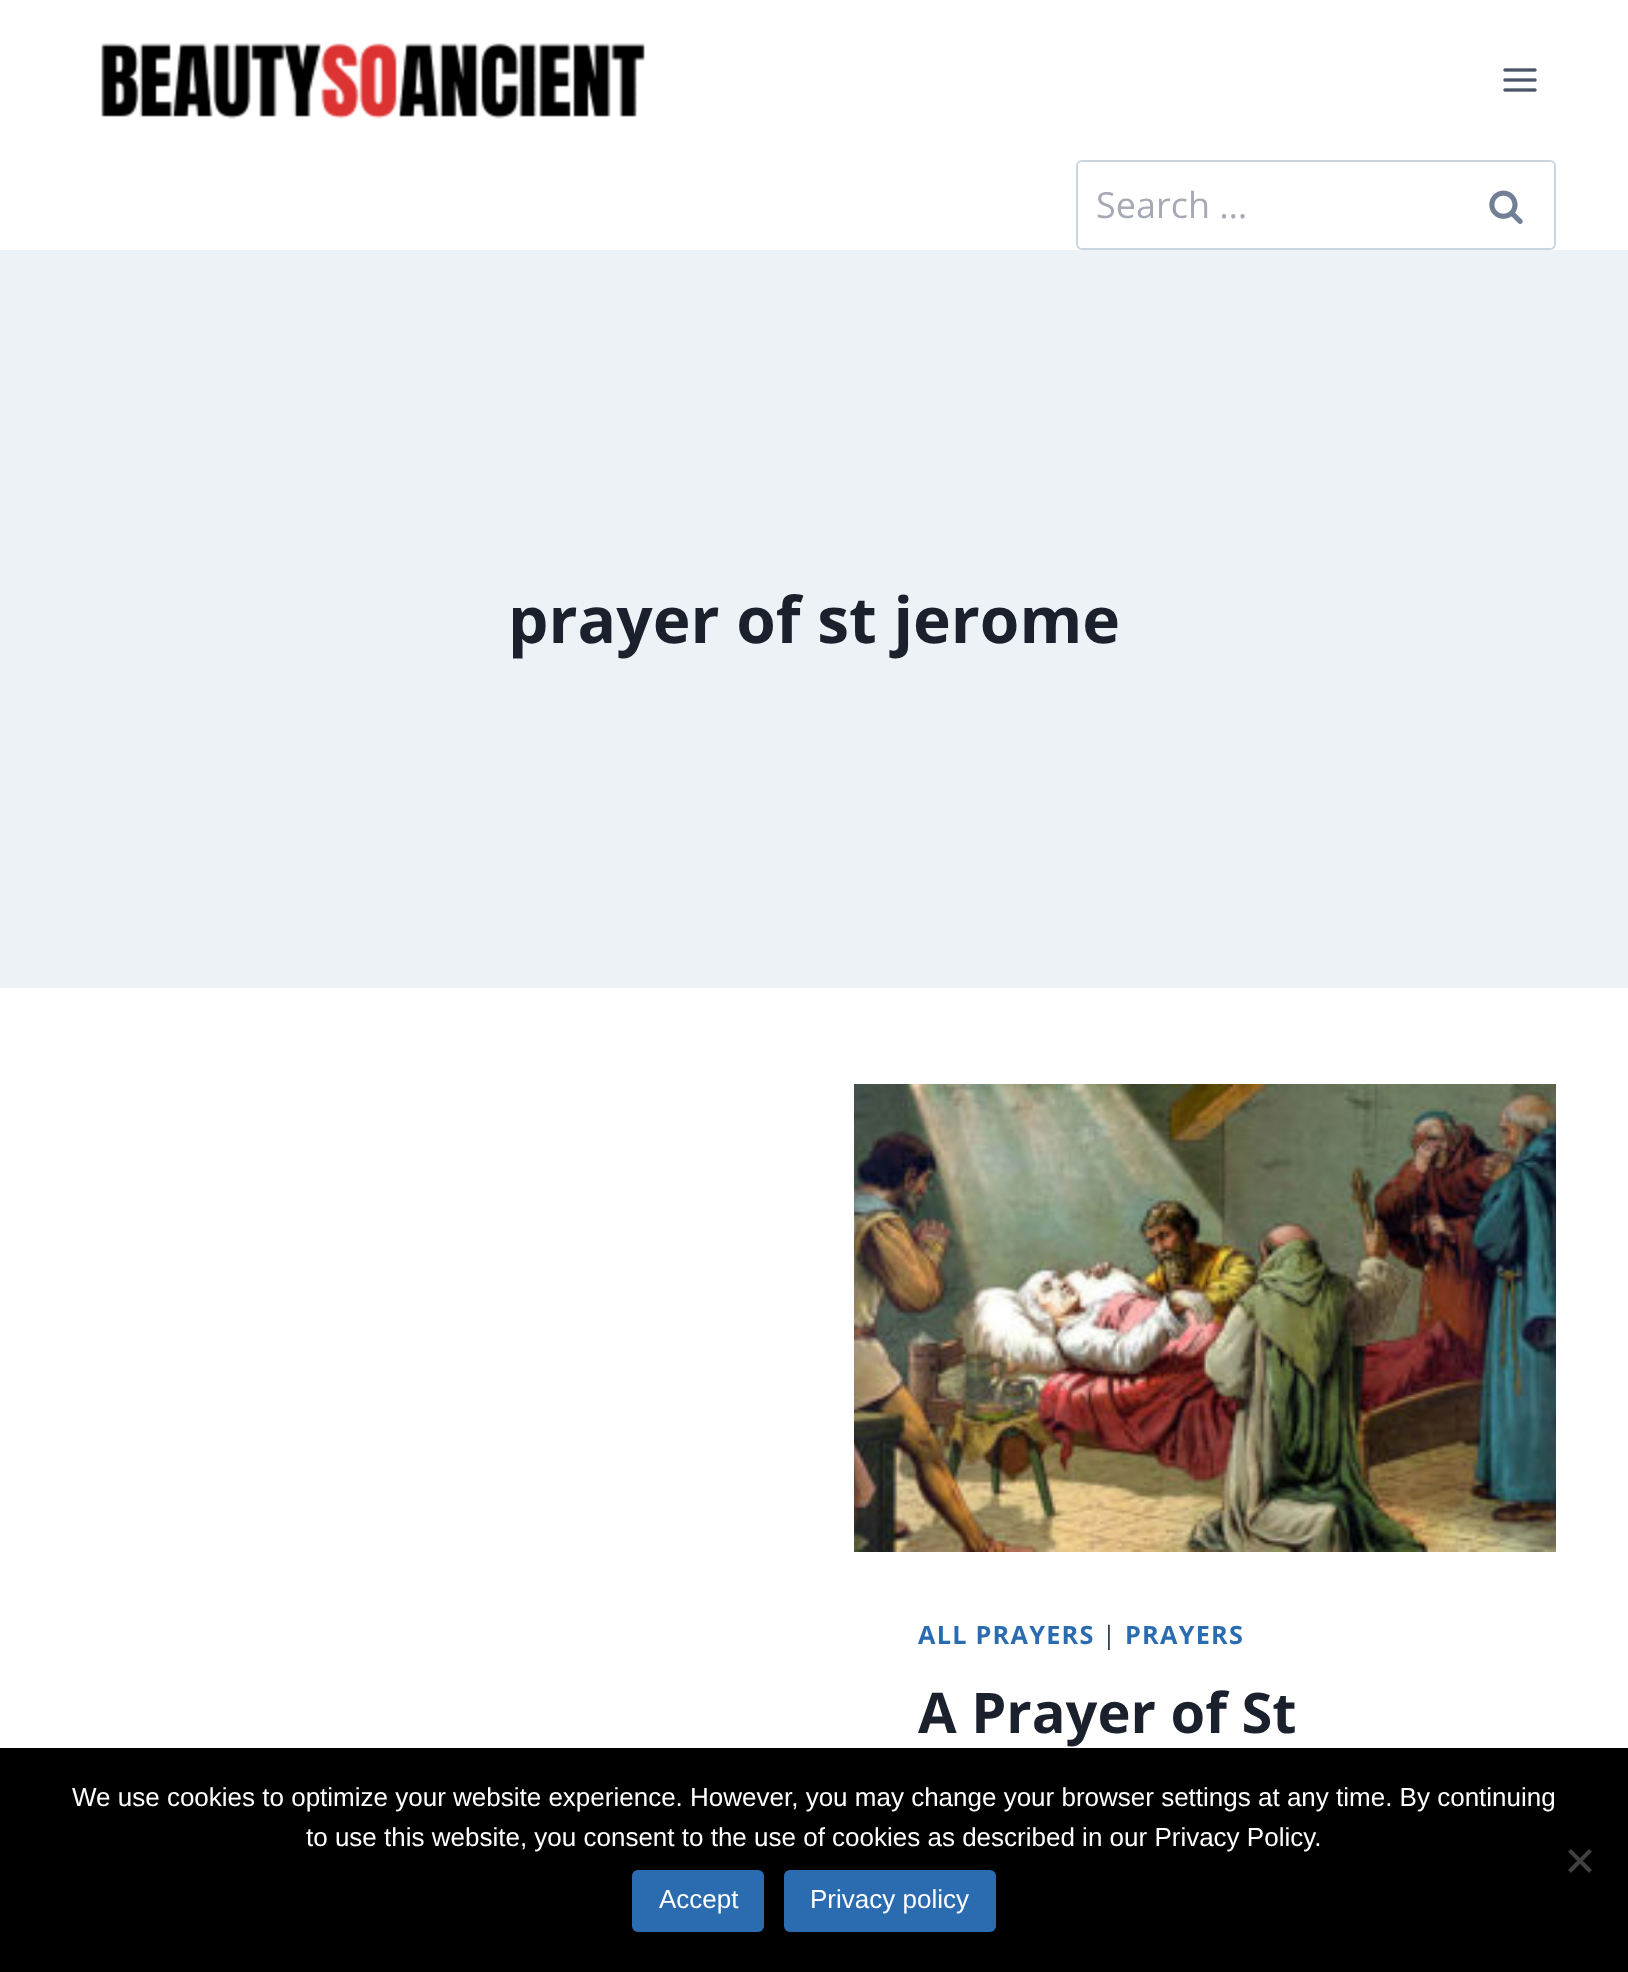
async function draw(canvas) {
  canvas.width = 1628;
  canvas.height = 1972;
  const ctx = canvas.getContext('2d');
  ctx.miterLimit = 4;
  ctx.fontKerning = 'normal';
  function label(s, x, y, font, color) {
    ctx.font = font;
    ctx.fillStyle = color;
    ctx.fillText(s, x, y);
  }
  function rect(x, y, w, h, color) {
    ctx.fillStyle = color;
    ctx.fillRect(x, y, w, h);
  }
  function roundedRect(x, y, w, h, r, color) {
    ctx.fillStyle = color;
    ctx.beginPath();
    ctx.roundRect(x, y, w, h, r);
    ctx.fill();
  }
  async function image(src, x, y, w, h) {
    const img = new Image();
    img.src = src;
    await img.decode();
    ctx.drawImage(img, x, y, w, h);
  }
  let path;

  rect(0, 0, 1628, 1972, '#fff');
  await image('assets/img1.png', 101, 43, 544, 76);
  await image('assets/img2.png', 1503, 68, 34, 24);
  ctx.beginPath();
  ctx.roundRect(1077, 161, 478, 88, 5);
  ctx.strokeStyle = '#cbd5e0';
  ctx.lineWidth = 2;
  ctx.stroke();
  label('Search …', 1096, 218, '36px Open Sans', '#a5aab4');
  await image('assets/img3.png', 1489, 190, 34, 34);
  rect(0, 250, 1628, 738, '#edf2f7');
  label('prayer of st jerome', 508, 643, 'bold 64px Open Sans', '#1a202c');
  await image('assets/img4.png', 854, 1084, 702, 468);
  ctx.letterSpacing = '1.25px';
  label('ALL PRAYERS', 918, 1644, 'bold 25.25px Open Sans', '#2b6cb0');
  label('|', 1102, 1644, '25.25px Open Sans', '#2d3748');
  label('PRAYERS', 1125, 1644, 'bold 25.25px Open Sans', '#2b6cb0');
  ctx.letterSpacing = '0px';
  label('A Prayer of St', 918, 1733, 'bold 56px Open Sans', '#1a202c');
  rect(0, 1748, 1628, 224, '#000');
  label('We use cookies to optimize your website experience. However, you may change your browser settings at any time. By continuing', 72, 1806, '26px Liberation Sans', '#fff');
  label('to use this website, you consent to the use of cookies as described in our Privacy Policy.', 306, 1846, '26px Liberation Sans', '#fff');
  ctx.fillStyle = '#404040';
  path = new Path2D('M1589 1849L1592 1851.5L1571 1873L1568 1870Z');
  ctx.fill(path);
  path = new Path2D('M1568 1851.5L1571 1849L1592 1870L1589 1873Z');
  ctx.fill(path);
  roundedRect(632, 1870, 132, 62, 6, '#2b6cb0');
  label('Accept', 659, 1908, '26px Liberation Sans', '#fff');
  roundedRect(784, 1870, 212, 62, 6, '#2b6cb0');
  label('Privacy policy', 810, 1908, '26px Liberation Sans', '#fff');
}

draw(document.querySelector('canvas'));
